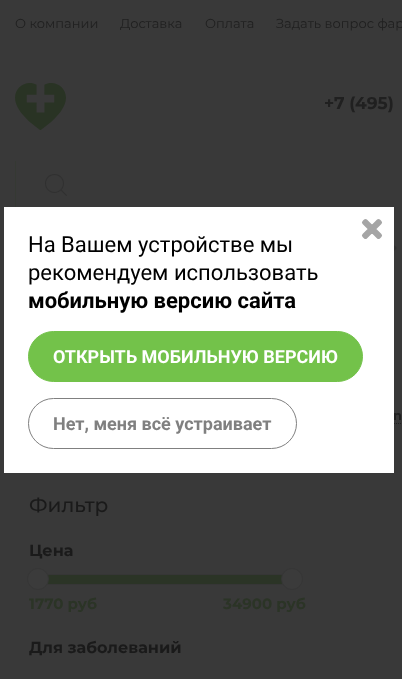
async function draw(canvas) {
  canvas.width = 402;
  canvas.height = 679;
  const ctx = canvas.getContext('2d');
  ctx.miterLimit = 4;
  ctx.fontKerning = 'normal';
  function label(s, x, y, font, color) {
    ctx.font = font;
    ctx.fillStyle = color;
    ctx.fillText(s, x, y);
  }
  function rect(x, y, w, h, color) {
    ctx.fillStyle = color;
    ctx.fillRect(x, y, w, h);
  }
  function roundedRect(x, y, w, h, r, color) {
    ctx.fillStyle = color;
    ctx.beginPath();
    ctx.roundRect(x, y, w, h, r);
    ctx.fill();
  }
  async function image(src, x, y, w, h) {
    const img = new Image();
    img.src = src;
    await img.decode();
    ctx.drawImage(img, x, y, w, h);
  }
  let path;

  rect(0, 0, 402, 679, '#393939');
  label('О компании', 15, 28, '13px Montserrat', '#202020');
  label('Доставка', 120, 28, '13px Montserrat', '#202020');
  label('Оплата', 205, 28, '13px Montserrat', '#202020');
  label('Задать вопрос фар', 276, 28, '13px Montserrat', '#202020');
  await image('assets/img1.png', 15, 83, 51, 47);
  label('+7 (495)', 324, 109, 'bold 17px Montserrat', '#202020');
  rect(15, 161, 1, 49, '#353933');
  await image('assets/img2.png', 45, 174, 22, 22);
  path = new Path2D('M385 240L395 248L385 256');
  ctx.strokeStyle = '#303030';
  ctx.lineWidth = 3;
  ctx.lineCap = 'round';
  ctx.lineJoin = 'round';
  ctx.stroke(path);
  path = new Path2D('M316 423.5H402');
  ctx.strokeStyle = '#232323';
  ctx.lineWidth = 1;
  ctx.lineCap = 'butt';
  ctx.lineJoin = 'miter';
  ctx.setLineDash([1, 1]);
  ctx.stroke(path);
  label('n', 393, 420, 'bold 13px Montserrat', '#202020');
  label('Фильтр', 29, 512, '500 20px Montserrat', '#1a1a1a');
  label('Цена', 29, 556, 'bold 16px Montserrat', '#1a1a1a');
  ctx.strokeStyle = '#363636';
  ctx.setLineDash([]);
  ctx.strokeRect(29.5, 574.5, 271, 10);
  roundedRect(46, 575, 238, 9, 3, '#2b3426');
  ctx.fillStyle = '#3b3b3b';
  ctx.beginPath();
  ctx.arc(38, 579, 10.5, 0, 2 * Math.PI);
  ctx.fill();
  ctx.stroke();
  ctx.beginPath();
  ctx.arc(292, 579, 10.5, 0, 2 * Math.PI);
  ctx.fill();
  ctx.stroke();
  label('1770 руб', 29, 609, 'bold 15px Montserrat', '#2b3426');
  label('34900 руб', 223, 609, 'bold 15px Montserrat', '#2b3426');
  label('Для заболеваний', 29, 653, 'bold 16px Montserrat', '#1a1a1a');
  rect(4, 207, 390, 266, '#fff');
  path = new Path2D('M373.5 229L380 222.5L378.5 221L372 227.5L365.5 221L364 222.5L370.5 229L364 235.5L365.5 237L372 230.5L378.5 237L380 235.5Z');
  ctx.strokeStyle = '#a5a5a5';
  ctx.lineWidth = 4;
  ctx.lineJoin = 'round';
  ctx.stroke(path);
  label('На Вашем устройстве мы', 28, 252, '22px Roboto', '#000');
  label('рекомендуем использовать', 28, 280, '22px Roboto', '#000');
  label('мобильную версию сайта', 28, 308, 'bold 22px Roboto', '#000');
  ctx.fillStyle = '#73c24a';
  ctx.beginPath();
  ctx.roundRect(28.5, 331.5, 334, 50, 25);
  ctx.fill();
  ctx.strokeStyle = '#73c24a';
  ctx.lineWidth = 1;
  ctx.lineJoin = 'miter';
  ctx.stroke();
  label('ОТКРЫТЬ МОБИЛЬНУЮ ВЕРСИЮ', 53, 363, 'bold 18px Roboto', '#fff');
  ctx.beginPath();
  ctx.roundRect(28.5, 398.5, 268, 50, 25);
  ctx.strokeStyle = '#808080';
  ctx.stroke();
  label('Нет, меня всё устраивает', 53, 430, 'bold 18px Roboto', '#808080');
}

draw(document.querySelector('canvas'));
